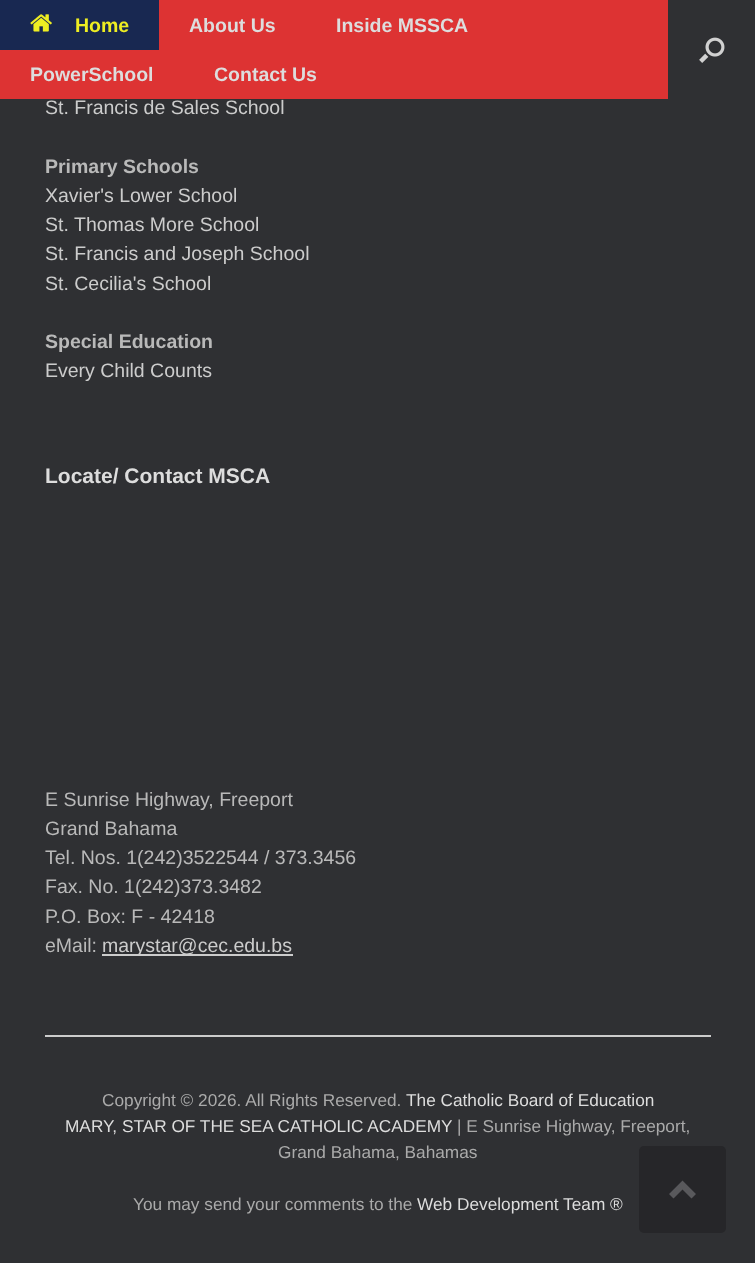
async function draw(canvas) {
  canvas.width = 755;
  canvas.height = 1263;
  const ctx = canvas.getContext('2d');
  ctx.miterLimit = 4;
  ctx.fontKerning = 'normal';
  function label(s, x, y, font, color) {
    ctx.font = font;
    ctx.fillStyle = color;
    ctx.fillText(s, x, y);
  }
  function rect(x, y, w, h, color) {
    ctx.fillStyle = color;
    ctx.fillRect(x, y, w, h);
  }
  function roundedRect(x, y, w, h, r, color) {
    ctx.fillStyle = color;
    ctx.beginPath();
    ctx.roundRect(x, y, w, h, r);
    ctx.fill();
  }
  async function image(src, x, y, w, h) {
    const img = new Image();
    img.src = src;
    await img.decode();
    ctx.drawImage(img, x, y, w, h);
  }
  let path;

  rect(0, 0, 755, 1263, '#2f3033');
  rect(0, 0, 668, 99, '#d33');
  rect(0, 0, 159, 50, '#182851');
  await image('assets/img1.png', 30, 14, 22, 18);
  label('Home', 75, 32, 'bold 19.5px Liberation Sans', '#ee2');
  label('About Us', 189, 32, 'bold 19.5px Liberation Sans', '#ddd');
  label('Inside MSSCA', 336, 32, 'bold 19.5px Liberation Sans', '#ddd');
  label('PowerSchool', 30, 81, 'bold 19.5px Liberation Sans', '#ddd');
  label('Contact Us', 214, 81, 'bold 19.5px Liberation Sans', '#ddd');
  await image('assets/img2.png', 699, 37, 26, 26);
  label('St. Francis de Sales School', 45, 114, '19.5px Liberation Sans', '#ccc');
  label('Primary Schools', 45, 173, 'bold 19.5px Liberation Sans', '#b9b9b9');
  label('Xavier\'s Lower School', 45, 202, '19.5px Liberation Sans', '#ccc');
  label('St.', 45, 231, '19.5px Liberation Sans', '#ccc');
  label('Thomas More School', 74, 231, '19.5px Liberation Sans', '#ccc');
  label('St. Francis and Joseph School', 45, 260, '19.5px Liberation Sans', '#ccc');
  label('St. Cecilia\'s School', 45, 290, '19.5px Liberation Sans', '#ccc');
  label('Special Education', 45, 348, 'bold 19.5px Liberation Sans', '#b9b9b9');
  label('Every Child Counts', 45, 377, '19.5px Liberation Sans', '#ccc');
  label('Locate/ Contact MSCA', 45, 483, 'bold 21px Liberation Sans', '#ddd');
  label('E Sunrise Highway, Freeport', 45, 806, '19.5px Liberation Sans', '#b9b9b9');
  label('Grand Bahama', 45, 835, '19.5px Liberation Sans', '#b9b9b9');
  label('Tel. Nos. 1(242)3522544 / 373.3456', 45, 864, '19.5px Liberation Sans', '#b9b9b9');
  label('Fax. No. 1(242)373.3482', 45, 893, '19.5px Liberation Sans', '#b9b9b9');
  label('P.O. Box: F - 42418', 45, 923, '19.5px Liberation Sans', '#b9b9b9');
  label('eMail:', 45, 952, '19.5px Liberation Sans', '#b9b9b9');
  rect(102, 954, 191, 2, '#ccc');
  label('marystar@cec.edu.bs', 102, 952, '19.5px Liberation Sans', '#ccc');
  rect(45, 1035, 666, 2, '#ccc');
  label('Copyright © 2026. All Rights Reserved.', 102, 1106, '17.25px Liberation Sans', '#aaa');
  label('The Catholic Board of Education', 406, 1106, '17.25px Liberation Sans', '#ddd');
  label('MARY, STAR OF THE SEA CATHOLIC ACADEMY', 65, 1132, '17.25px Liberation Sans', '#ddd');
  label('| E Sunrise Highway, Freeport,', 457, 1132, '17.25px Liberation Sans', '#aaa');
  label('Grand Bahama, Bahamas', 278, 1158, '17.25px Liberation Sans', '#aaa');
  label('You may send your comments to the', 133, 1210, '17.25px Liberation Sans', '#aaa');
  label('Web Development Team ®', 417, 1210, '17.25px Liberation Sans', '#ddd');
  roundedRect(639, 1146, 87, 87, 5, '#262629');
  ctx.fillStyle = '#59595c';
  path = new Path2D('M696 1194L682.5 1180.5L669 1194L673.5 1198.5L682.5 1189.5L691.5 1198.5Z');
  ctx.fill(path);
}

draw(document.querySelector('canvas'));
